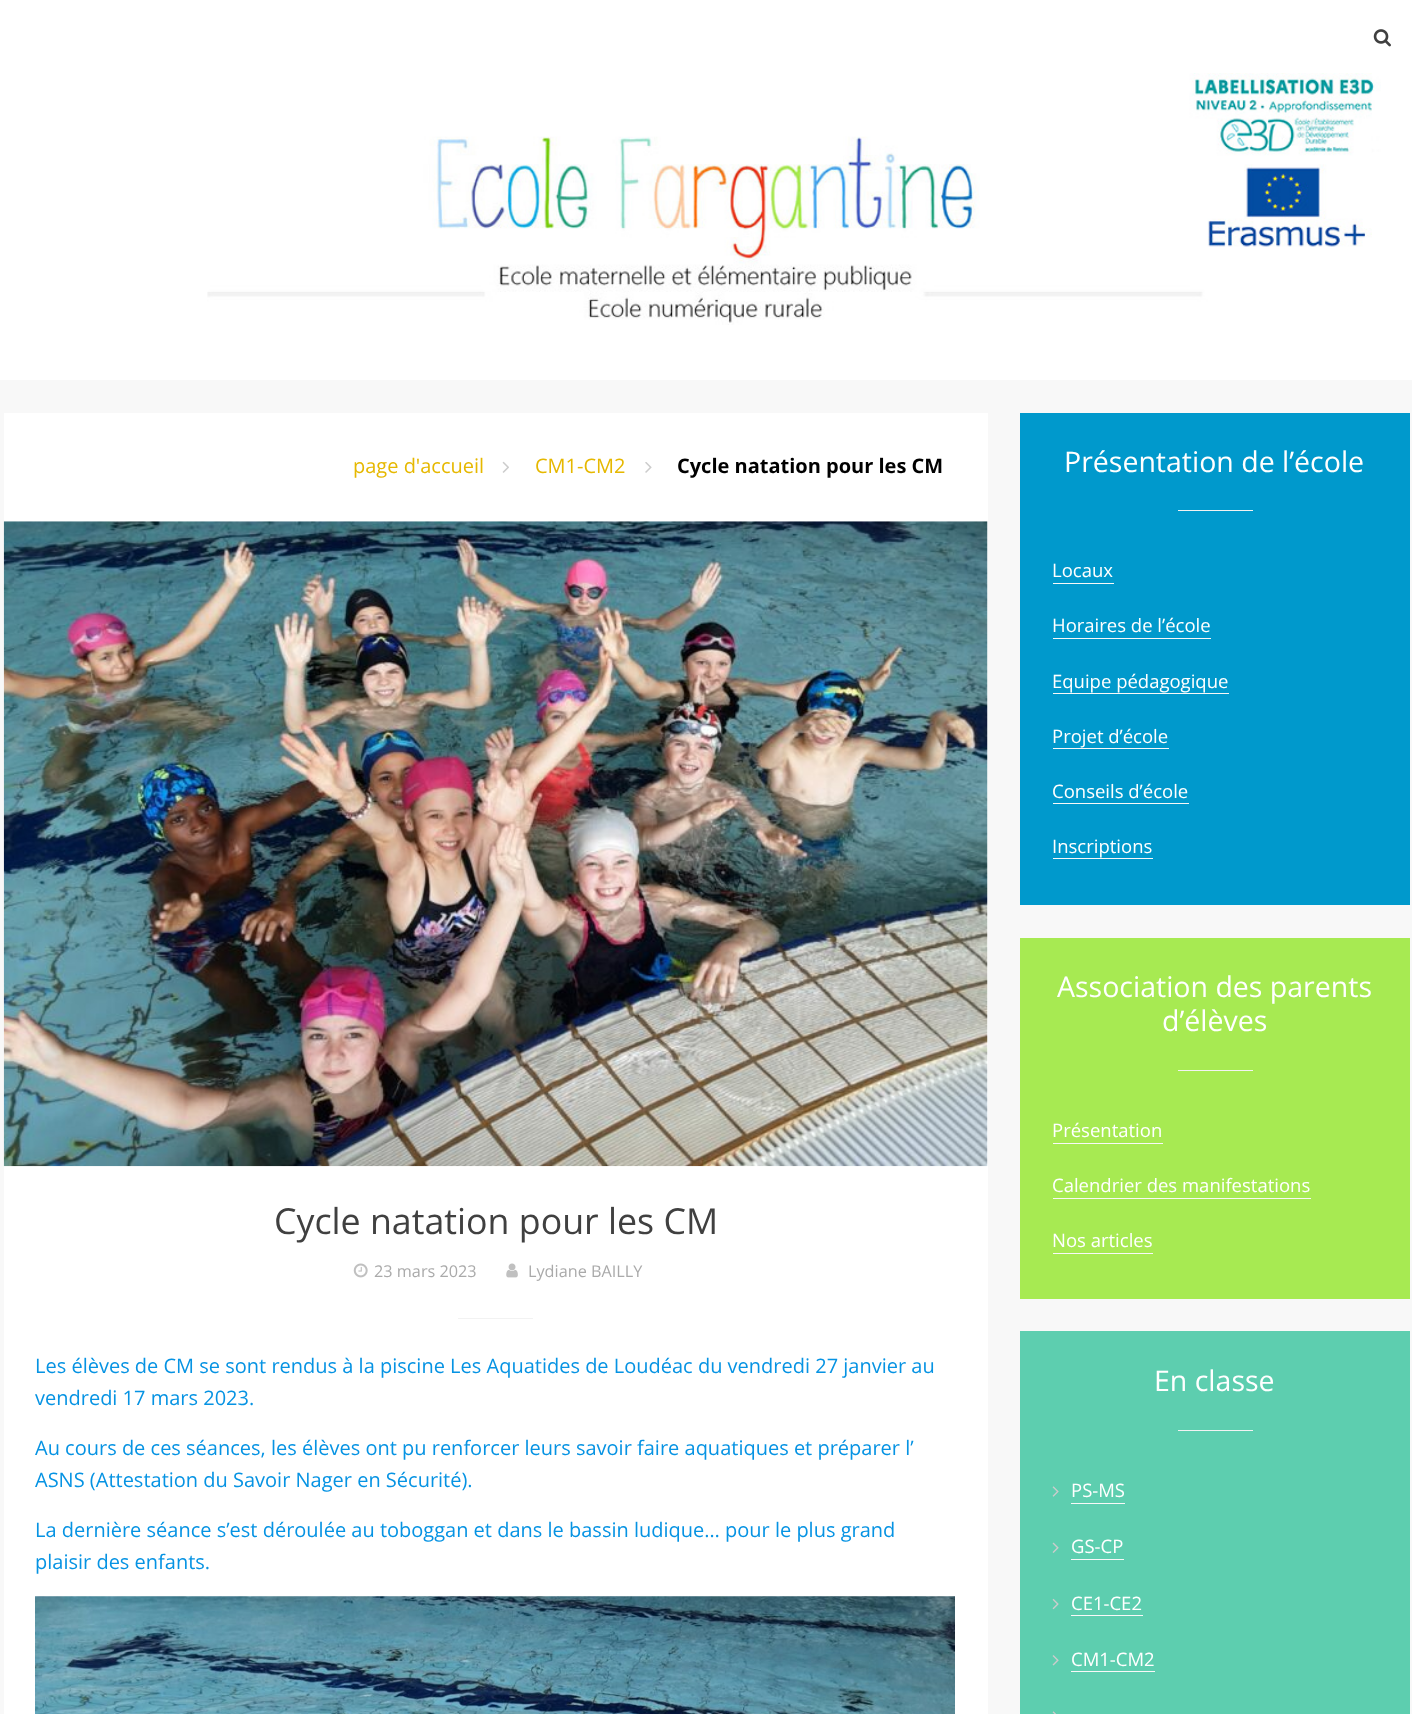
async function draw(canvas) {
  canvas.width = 1412;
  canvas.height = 1714;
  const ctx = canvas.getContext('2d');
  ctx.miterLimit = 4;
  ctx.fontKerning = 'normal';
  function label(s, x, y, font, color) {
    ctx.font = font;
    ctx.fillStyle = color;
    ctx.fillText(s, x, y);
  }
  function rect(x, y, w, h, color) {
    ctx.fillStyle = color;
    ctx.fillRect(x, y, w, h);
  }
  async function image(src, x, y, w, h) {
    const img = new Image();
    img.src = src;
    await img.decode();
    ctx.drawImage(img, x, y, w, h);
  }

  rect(0, 0, 1412, 1714, '#f8f8f8');
  rect(0, 0, 1412, 380, '#fff');
  await image('assets/img1.png', 1373, 29, 18, 18);
  await image('assets/img2.png', 207, 73, 1174, 252);
  rect(4, 413, 984, 753, '#fff');
  label('page d\'accueil', 353, 473, '20px Open Sans', '#e6b800');
  await image('assets/img3.png', 502, 461, 7, 12);
  label('CM1-CM2', 535, 473, '20px Open Sans', '#e6b800');
  await image('assets/img4.png', 645, 462, 7, 11);
  label('Cycle natation pour les CM', 677, 473, 'bold 20px Open Sans', '#000');
  rect(4, 1166, 984, 548, '#fff');
  await image('assets/img5.png', 3, 521, 985, 646);
  label('Cycle natation pour les CM', 274, 1234, '35.75px Open Sans', '#404040');
  await image('assets/img6.png', 353, 1263, 15, 15);
  label('23 mars 2023', 374, 1277, '16.25px Open Sans', '#aaa');
  await image('assets/img7.png', 506, 1263, 12, 15);
  label('Lydiane BAILLY', 528, 1277, '16.25px Open Sans', '#aaa');
  rect(458, 1318, 75, 1, '#f2f2f2');
  label('Les élèves de CM se sont rendus à la piscine Les Aquatides de Loudéac du vendredi 27 janvier au', 35, 1373, '20px Open Sans', '#0693e3');
  label('vendredi 17 mars 2023.', 35, 1405, '20px Open Sans', '#0693e3');
  label('Au cours de ces séances, les élèves ont pu renforcer leurs savoir faire aquatiques et préparer l’', 35, 1455, '20px Open Sans', '#0693e3');
  label('ASNS (Attestation du Savoir Nager en Sécurité).', 35, 1487, '20px Open Sans', '#0693e3');
  label('La dernière séance s’est déroulée au toboggan et dans le bassin ludique… pour le plus grand', 35, 1537, '20px Open Sans', '#0693e3');
  label('plaisir des enfants.', 35, 1569, '20px Open Sans', '#0693e3');
  await image('assets/img8.png', 35, 1596, 920, 118);
  rect(1020, 413, 390, 492, '#09c');
  label('Présentation de l’école', 1064, 472, '28.5px Open Sans', '#fff');
  rect(1178, 510, 75, 1, '#f2f2f2');
  label('Locaux', 1052, 577, '18.5px Open Sans', '#fff');
  rect(1053, 583, 61, 1, '#f8f8f8');
  label('Horaires de l’école', 1052, 632, '18.5px Open Sans', '#fff');
  rect(1053, 638, 158, 1, '#f8f8f8');
  label('Equipe pédagogique', 1052, 688, '18.5px Open Sans', '#fff');
  rect(1053, 693, 176, 1, '#f8f8f8');
  label('Projet d’école', 1052, 743, '18.5px Open Sans', '#fff');
  rect(1053, 748, 116, 1, '#f8f8f8');
  label('Conseils d’école', 1052, 798, '18.5px Open Sans', '#fff');
  rect(1053, 803, 136, 1, '#f8f8f8');
  label('Inscriptions', 1052, 853, '18.5px Open Sans', '#fff');
  rect(1053, 858, 100, 1, '#f8f8f8');
  rect(1020, 938, 390, 361, '#a7ea52');
  label('Association des parents', 1057, 997, '28.5px Open Sans', '#fff');
  label('d’élèves', 1162, 1031, '28.5px Open Sans', '#fff');
  rect(1178, 1070, 75, 1, '#f2f2f2');
  label('Présentation', 1052, 1137, '18.5px Open Sans', '#fff');
  rect(1053, 1143, 110, 1, '#f8f8f8');
  label('Calendrier des manifestations', 1052, 1192, '18.5px Open Sans', '#fff');
  rect(1053, 1198, 258, 1, '#f8f8f8');
  label('Nos articles', 1052, 1247, '18.5px Open Sans', '#fff');
  rect(1053, 1253, 100, 1, '#f8f8f8');
  rect(1020, 1331, 390, 383, '#5dceaf');
  label('En classe', 1154, 1391, '28.5px Open Sans', '#fff');
  rect(1178, 1430, 75, 1, '#f2f2f2');
  await image('assets/img9.png', 1052, 1486, 7, 11);
  label('PS-MS', 1071, 1497, '18.5px Open Sans', '#fff');
  rect(1071, 1503, 54, 1, '#f8f8f8');
  await image('assets/img10.png', 1052, 1542, 7, 11);
  label('GS-CP', 1071, 1553, '18.5px Open Sans', '#fff');
  rect(1071, 1559, 53, 1, '#f8f8f8');
  await image('assets/img11.png', 1052, 1598, 7, 12);
  label('CE1-CE2', 1071, 1610, '18.5px Open Sans', '#fff');
  rect(1071, 1615, 72, 1, '#f8f8f8');
  await image('assets/img12.png', 1052, 1655, 7, 11);
  label('CM1-CM2', 1071, 1666, '18.5px Open Sans', '#fff');
  rect(1071, 1671, 84, 1, '#f8f8f8');
  await image('assets/img13.png', 1052, 1711, 4, 3);
}

draw(document.querySelector('canvas'));
